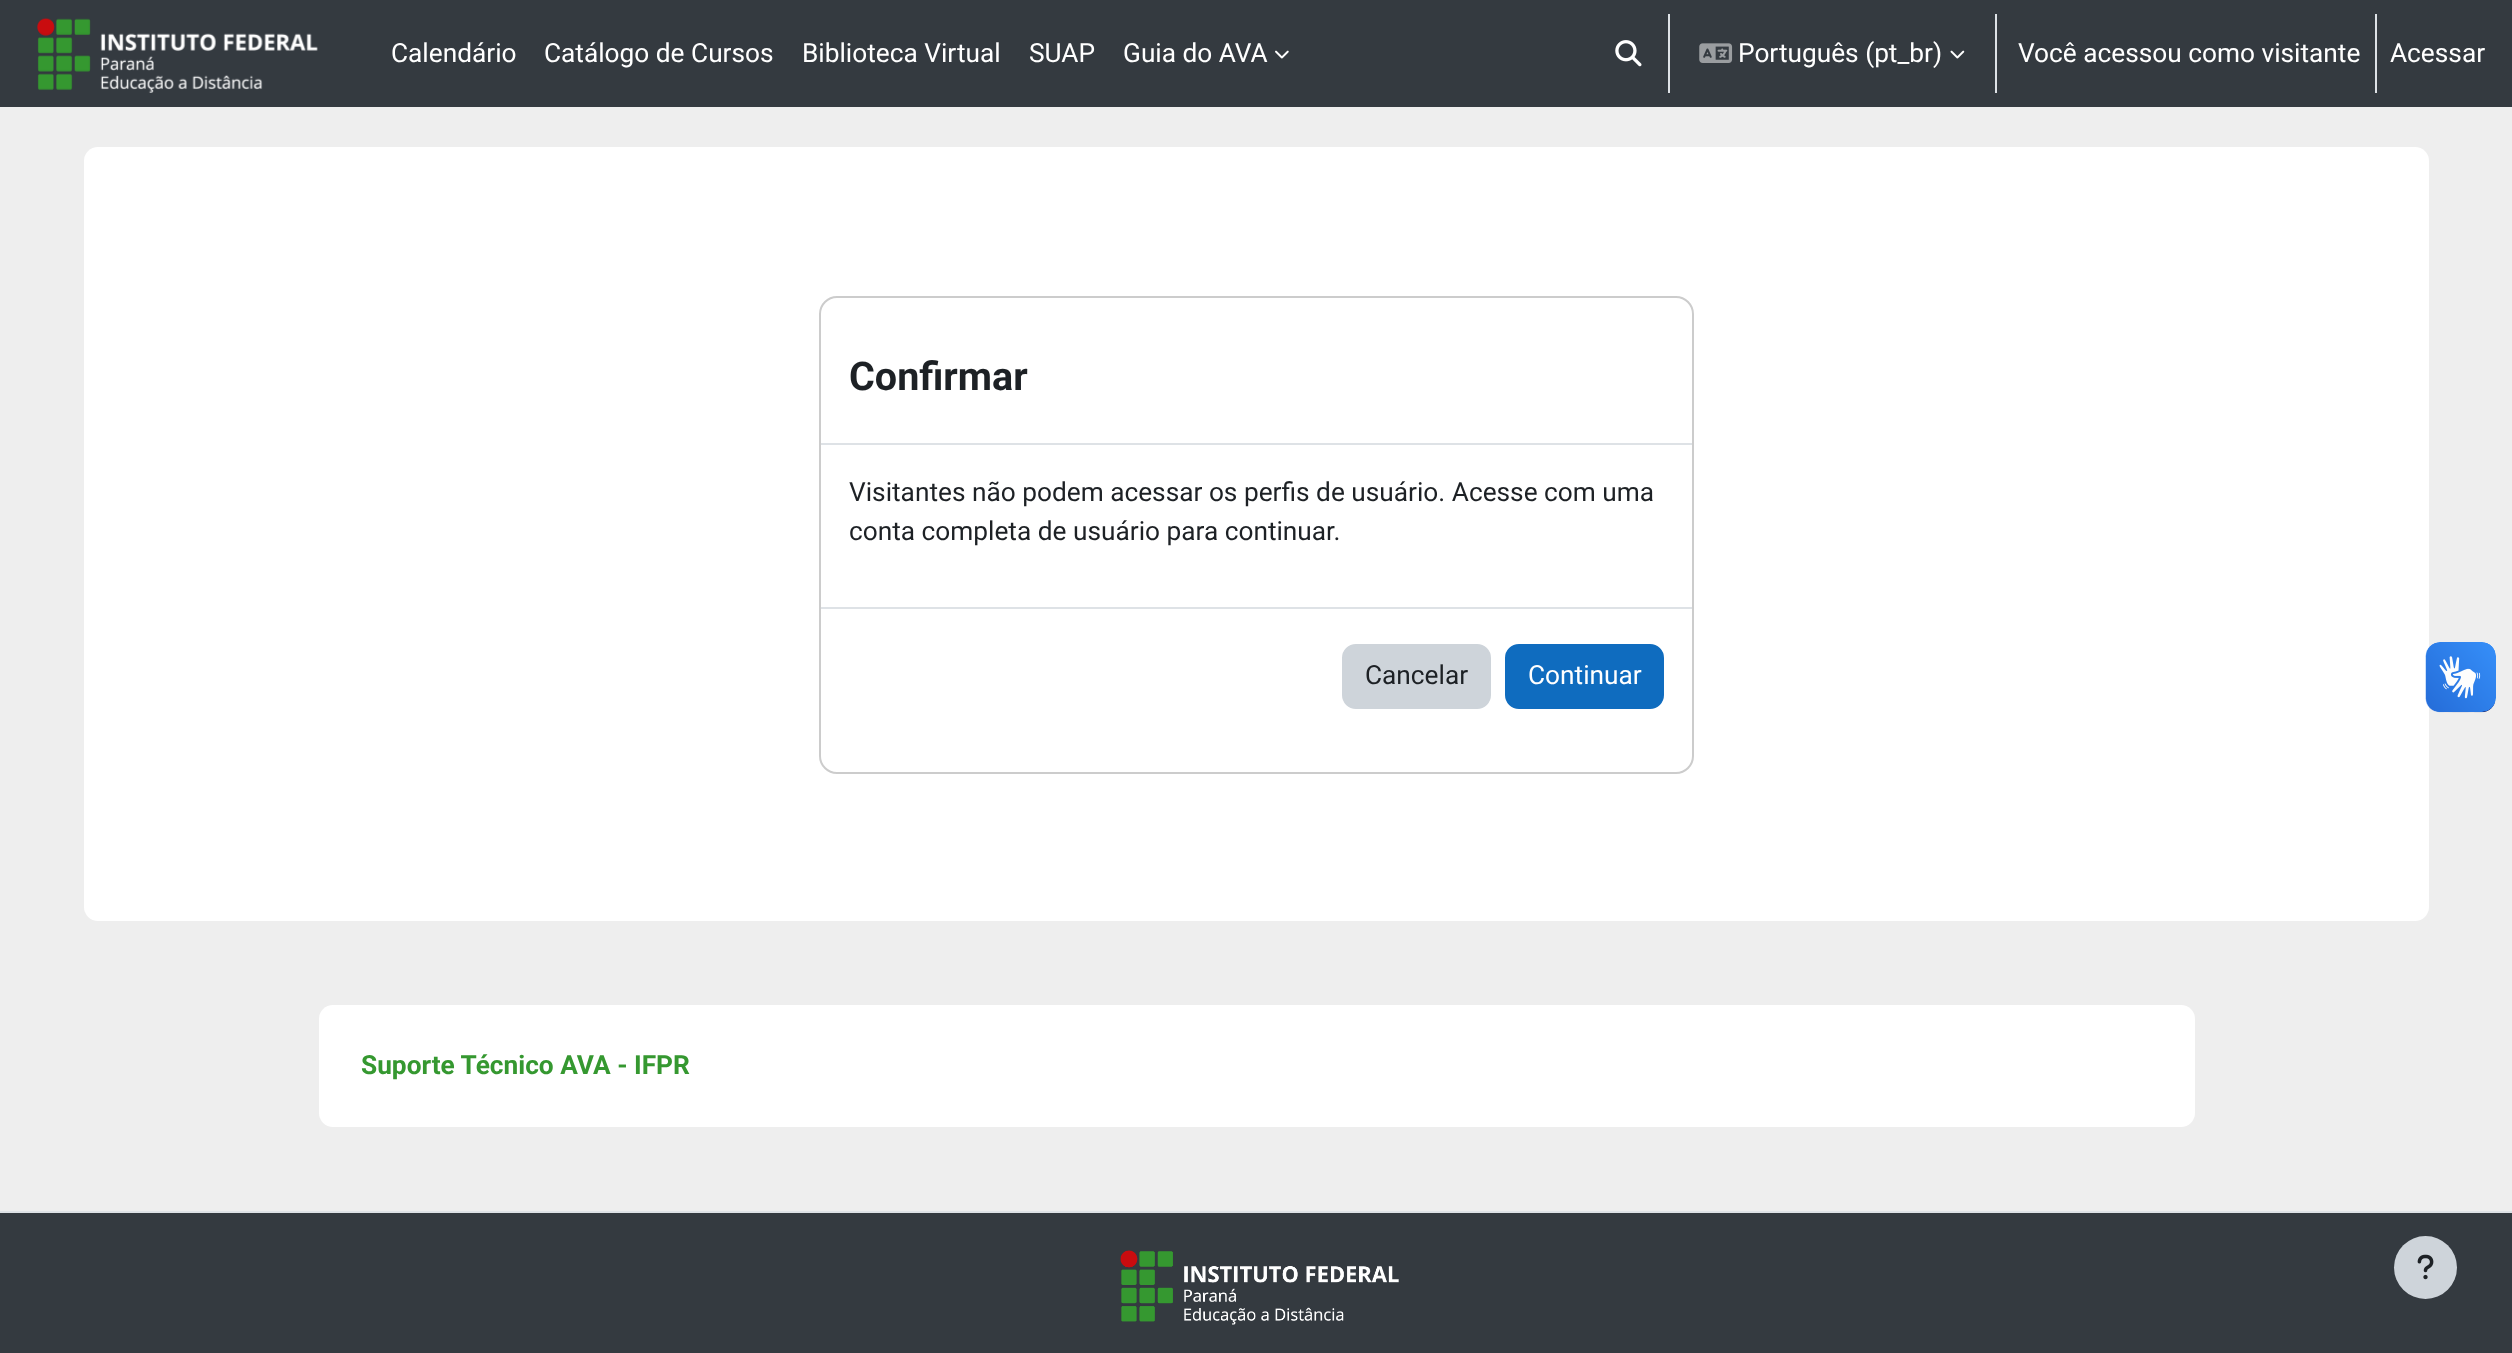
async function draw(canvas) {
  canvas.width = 2512;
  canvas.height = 1353;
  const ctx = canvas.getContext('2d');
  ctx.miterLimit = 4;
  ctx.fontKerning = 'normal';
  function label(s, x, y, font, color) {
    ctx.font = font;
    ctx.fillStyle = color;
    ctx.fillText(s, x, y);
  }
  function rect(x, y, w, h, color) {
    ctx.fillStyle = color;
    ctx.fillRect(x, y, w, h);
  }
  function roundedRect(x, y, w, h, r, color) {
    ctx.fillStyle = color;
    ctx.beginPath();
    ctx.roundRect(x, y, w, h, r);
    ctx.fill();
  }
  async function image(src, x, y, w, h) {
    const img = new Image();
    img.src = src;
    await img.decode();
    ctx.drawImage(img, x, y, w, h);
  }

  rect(0, 0, 2512, 1353, '#eee');
  rect(0, 0, 2512, 107, '#343a40');
  await image('assets/img1.png', 37, 17, 281, 76);
  label('Calendário', 391, 62, '26.25px Roboto', '#fff');
  label('Catálogo de Cursos', 544, 62, '26.25px Roboto', '#fff');
  label('Biblioteca Virtual', 802, 62, '26.25px Roboto', '#fff');
  label('SUAP', 1029, 62, '26.25px Roboto', '#fff');
  label('Guia do AVA', 1123, 62, '26.25px Roboto', '#fff');
  await image('assets/img2.png', 1275, 50, 14, 9);
  await image('assets/img3.png', 1615, 40, 27, 27);
  rect(1668, 14, 2, 79, '#dee2e6');
  await image('assets/img4.png', 1699, 43, 34, 20);
  label('Português (pt_br)', 1738, 62, '26.25px Roboto', '#fff');
  await image('assets/img5.png', 1950, 50, 15, 9);
  rect(1995, 14, 2, 79, '#dee2e6');
  label('Você acessou como visitante', 2018, 62, '26.25px Roboto', '#fff');
  rect(2375, 14, 2, 79, '#dee2e6');
  label('Acessar', 2390, 62, '26.25px Roboto', '#fff');
  roundedRect(84, 147, 2345, 774, 14, '#fff');
  ctx.beginPath();
  ctx.roundRect(820, 297, 873, 476, 17);
  ctx.strokeStyle = '#ccc';
  ctx.lineWidth = 2;
  ctx.stroke();
  rect(821, 443, 871, 2, '#dee2e6');
  label('Confirmar', 849, 390, 'bold 39.5px Roboto', '#1d2125');
  label('Visitantes não podem acessar os perfis de usuário. Acesse com uma', 849, 501, '26.25px Roboto', '#1d2125');
  label('conta completa de usuário para continuar.', 849, 540, '26.25px Roboto', '#1d2125');
  rect(821, 607, 871, 2, '#dee2e6');
  ctx.fillStyle = '#ced4da';
  ctx.beginPath();
  ctx.roundRect(1343, 645, 147, 63, 13);
  ctx.fill();
  ctx.strokeStyle = '#ced4da';
  ctx.stroke();
  label('Cancelar', 1365, 684, '26.25px Roboto', '#1d2125');
  ctx.fillStyle = '#0f6cbf';
  ctx.beginPath();
  ctx.roundRect(1506, 645, 157, 63, 13);
  ctx.fill();
  ctx.strokeStyle = '#0f6cbf';
  ctx.stroke();
  label('Continuar', 1528, 684, '26.25px Roboto', '#fff');
  roundedRect(319, 1005, 1876, 122, 14, '#fff');
  label('Suporte Técnico AVA - IFPR', 361, 1074, 'bold 26.25px Roboto', '#359830');
  rect(0, 1213, 2512, 140, '#343a40');
  rect(0, 1211, 2512, 2, '#dee2e6');
  await image('assets/img6.png', 1120, 1250, 279, 75);
  ctx.fillStyle = '#ced4da';
  ctx.beginPath();
  ctx.arc(2425.5, 1267.5, 31.5, 0, 2 * Math.PI);
  ctx.fill();
  await image('assets/img7.png', 2417, 1254, 17, 26);
  await image('assets/img8.png', 2425, 642, 71, 71);
  await image('assets/img9.png', 2426, 642, 70, 70);
}

draw(document.querySelector('canvas'));
